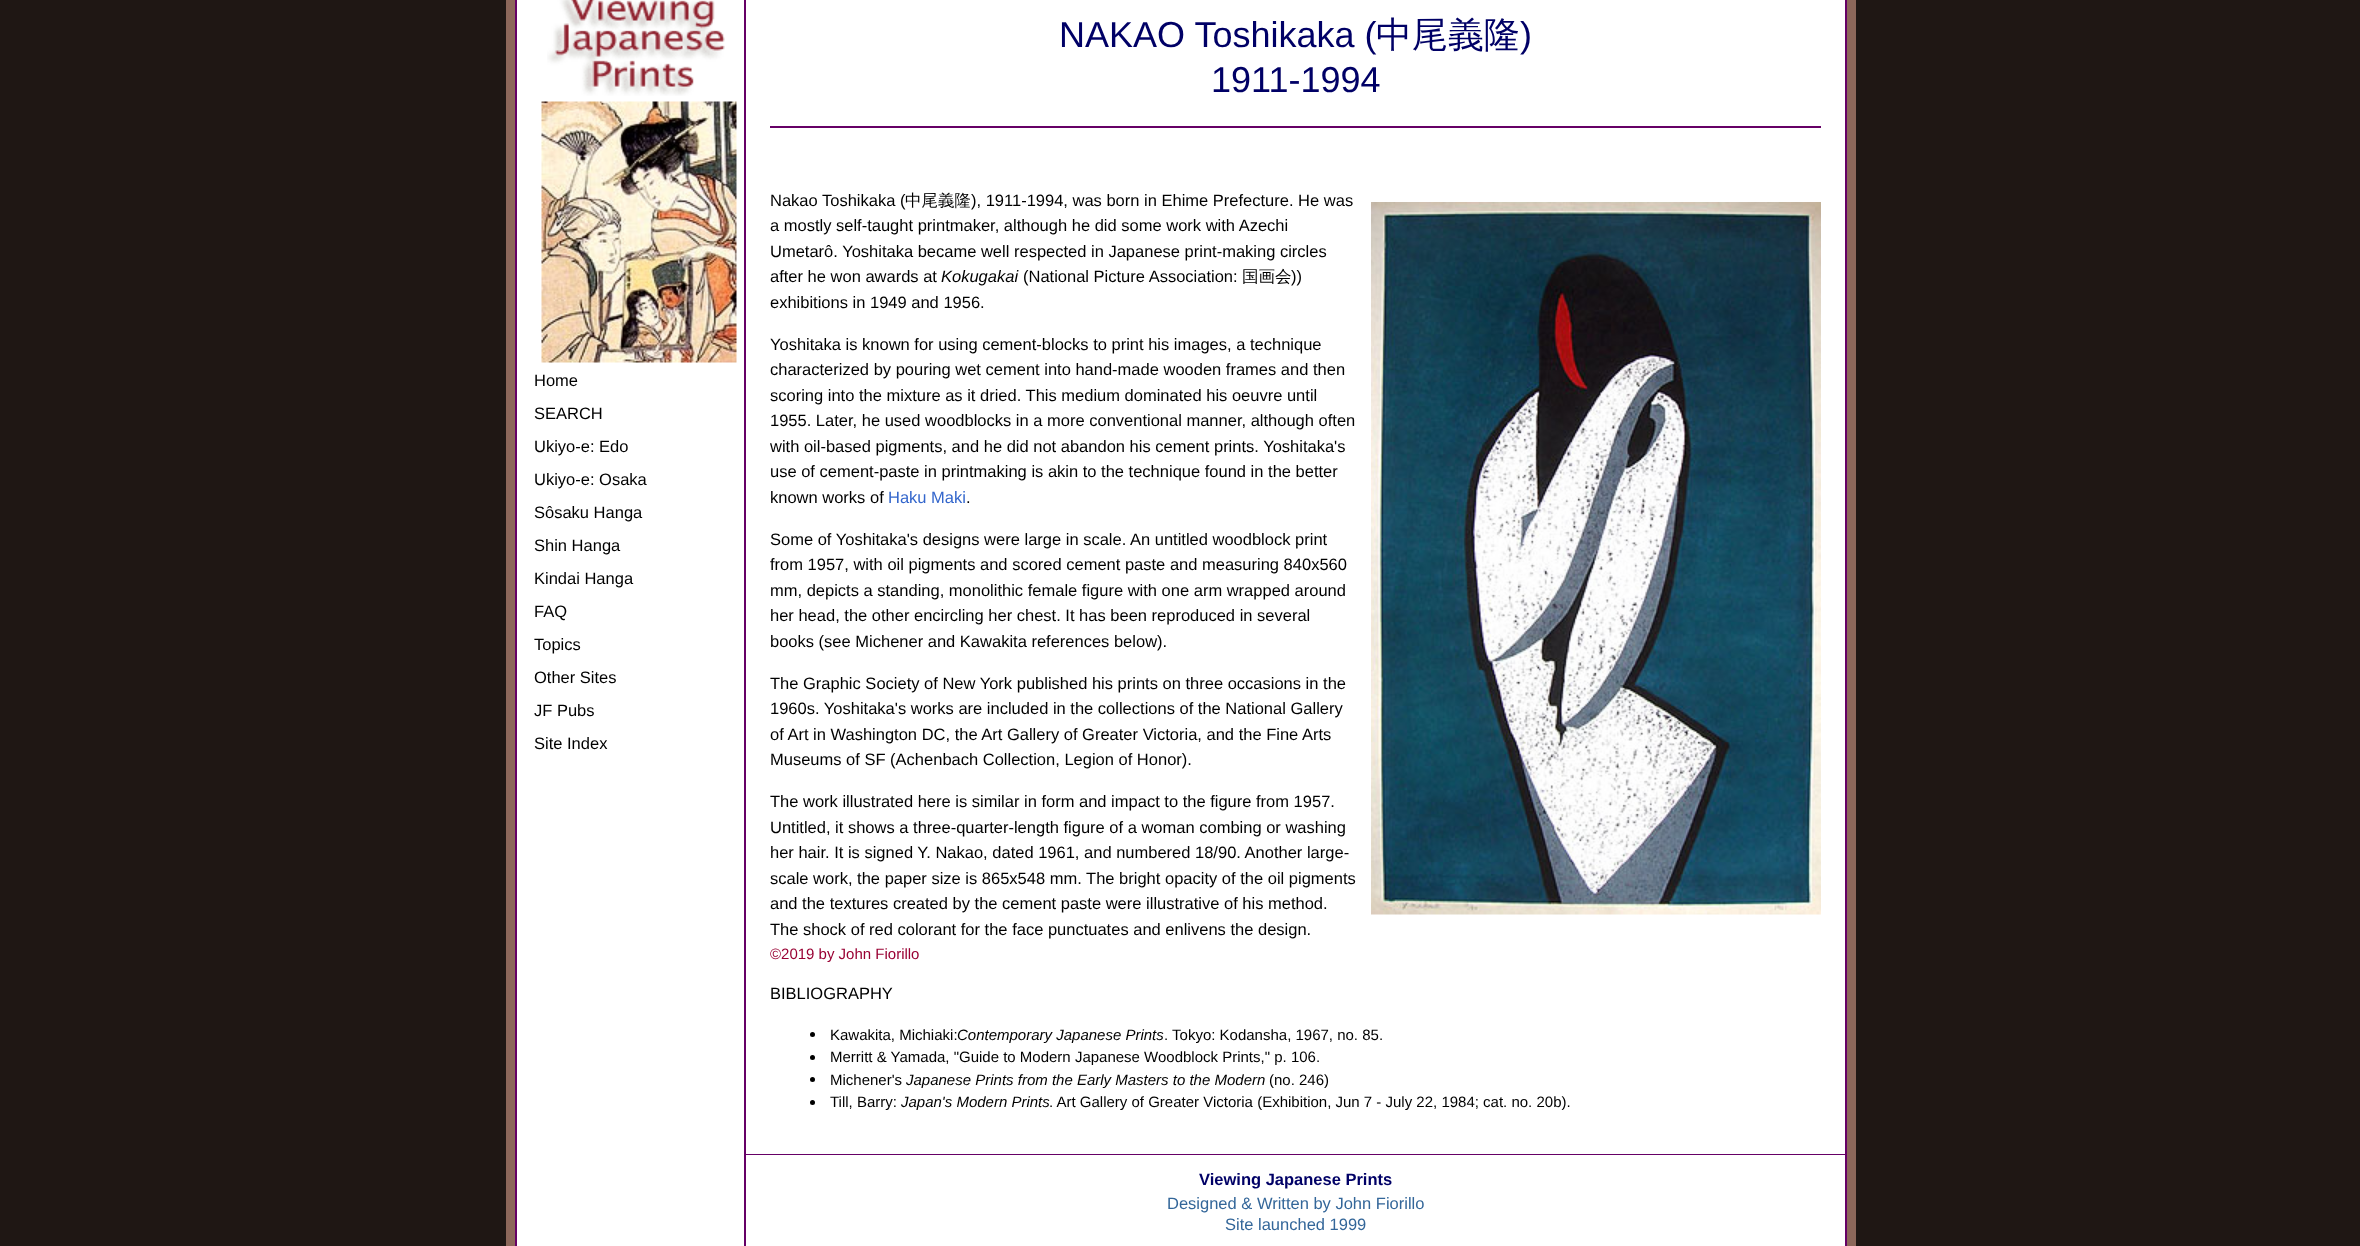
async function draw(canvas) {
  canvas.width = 2360;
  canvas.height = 1246;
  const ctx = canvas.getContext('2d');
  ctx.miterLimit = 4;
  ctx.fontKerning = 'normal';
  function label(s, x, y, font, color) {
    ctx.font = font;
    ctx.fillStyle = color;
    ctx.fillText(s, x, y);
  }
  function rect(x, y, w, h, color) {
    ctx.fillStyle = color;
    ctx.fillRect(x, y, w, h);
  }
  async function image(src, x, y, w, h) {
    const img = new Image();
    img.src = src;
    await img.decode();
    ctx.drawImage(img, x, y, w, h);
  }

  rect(0, 0, 2360, 1246, '#1f1714');
  ctx.strokeStyle = '#8c675a';
  ctx.lineWidth = 9;
  ctx.strokeRect(510.5, -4.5, 1341, 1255);
  rect(517, 0, 1328, 1246, '#fff');
  rect(515, 0, 2, 1246, '#606');
  await image('assets/img1.png', 547, 0, 178, 96);
  await image('assets/img2.png', 541, 101, 196, 262);
  label('Home', 534, 386, '16.5px Liberation Sans', '#000');
  label('SEARCH', 534, 419, '16.5px Liberation Sans', '#000');
  label('Ukiyo-e: Edo', 534, 452, '16.5px Liberation Sans', '#000');
  label('Ukiyo-e: Osaka', 534, 485, '16.5px Liberation Sans', '#000');
  label('Sôsaku Hanga', 534, 518, '16.5px Liberation Sans', '#000');
  label('Shin Hanga', 534, 551, '16.5px Liberation Sans', '#000');
  label('Kindai Hanga', 534, 584, '16.5px Liberation Sans', '#000');
  label('FAQ', 534, 617, '16.5px Liberation Sans', '#000');
  label('Topics', 534, 650, '16.5px Liberation Sans', '#000');
  label('Other Sites', 534, 683, '16.5px Liberation Sans', '#000');
  label('JF Pubs', 534, 716, '16.5px Liberation Sans', '#000');
  label('Site Index', 534, 749, '16.5px Liberation Sans', '#000');
  rect(744, 0, 2, 1128, '#606');
  label('NAKAO Toshikaka (', 1059, 47, '36px Liberation Sans', '#006');
  label('中尾義隆', 1376, 47, '500 36px WenQuanYi Zen Hei', '#006');
  label(')', 1520, 47, '36px Liberation Sans', '#006');
  label('1911-1994', 1211, 92, '36px Liberation Sans', '#006');
  rect(770, 126, 1051, 2, '#606');
  label('Nakao Toshikaka (', 770, 206, '16.5px Liberation Sans', '#000');
  label('中尾義隆', 905, 206, '500 16.5px WenQuanYi Zen Hei', '#000');
  label('), 1911-1994, was born in Ehime Prefecture. He was', 971, 206, '16.5px Liberation Sans', '#000');
  await image('assets/img3.png', 1371, 202, 450, 713);
  label('a mostly self-taught printmaker, although he did some work with Azechi', 770, 231, '16.5px Liberation Sans', '#000');
  label('Umetarô. Yoshitaka became well respected in Japanese print-making circles', 770, 257, '16.5px Liberation Sans', '#000');
  label('after he won awards at', 770, 282, '16.5px Liberation Sans', '#000');
  label('Kokugakai', 941, 282, 'italic 16.5px Liberation Sans', '#000');
  label('(National Picture Association:', 1023, 282, '16.5px Liberation Sans', '#000');
  label('国画会', 1242, 282, '500 16.5px WenQuanYi Zen Hei', '#000');
  label('))', 1291, 282, '16.5px Liberation Sans', '#000');
  label('exhibitions in 1949 and 1956.', 770, 308, '16.5px Liberation Sans', '#000');
  label('Yoshitaka is known for using cement-blocks to print his images, a technique', 770, 350, '16.5px Liberation Sans', '#000');
  label('characterized by pouring wet cement into hand-made wooden frames and then', 770, 375, '16.5px Liberation Sans', '#000');
  label('scoring into the mixture as it dried. This medium dominated his oeuvre until', 770, 401, '16.5px Liberation Sans', '#000');
  label('1955. Later, he used woodblocks in a more conventional manner, although often', 770, 426, '16.5px Liberation Sans', '#000');
  label('with oil-based pigments, and he did not abandon his cement prints. Yoshitaka\'s', 770, 452, '16.5px Liberation Sans', '#000');
  label('use of cement-paste in printmaking is akin to the technique found in the better', 770, 477, '16.5px Liberation Sans', '#000');
  label('known works of', 770, 503, '16.5px Liberation Sans', '#000');
  label('Haku Maki', 888, 503, '16.5px Liberation Sans', '#36c');
  label('.', 966, 503, '16.5px Liberation Sans', '#000');
  label('Some of Yoshitaka\'s designs were large in scale. An untitled woodblock print', 770, 545, '16.5px Liberation Sans', '#000');
  label('from 1957, with oil pigments and scored cement paste and measuring 840x560', 770, 570, '16.5px Liberation Sans', '#000');
  label('mm, depicts a standing, monolithic female figure with one arm wrapped around', 770, 596, '16.5px Liberation Sans', '#000');
  label('her head, the other encircling her chest. It has been reproduced in several', 770, 621, '16.5px Liberation Sans', '#000');
  label('books (see Michener and Kawakita references below).', 770, 647, '16.5px Liberation Sans', '#000');
  label('The Graphic Society of New York published his prints on three occasions in the', 770, 689, '16.5px Liberation Sans', '#000');
  label('1960s. Yoshitaka\'s works are included in the collections of the National Gallery', 770, 714, '16.5px Liberation Sans', '#000');
  label('of Art in Washington DC, the Art Gallery of Greater Victoria, and the Fine Arts', 770, 740, '16.5px Liberation Sans', '#000');
  label('Museums of SF (Achenbach Collection, Legion of Honor).', 770, 765, '16.5px Liberation Sans', '#000');
  label('The work illustrated here is similar in form and impact to the figure from 1957.', 770, 807, '16.5px Liberation Sans', '#000');
  label('Untitled, it shows a three-quarter-length figure of a woman combing or washing', 770, 833, '16.5px Liberation Sans', '#000');
  label('her hair. It is signed Y. Nakao, dated 1961, and numbered 18/90. Another large-', 770, 858, '16.5px Liberation Sans', '#000');
  label('scale work, the paper size is 865x548 mm. The bright opacity of the oil pigments', 770, 884, '16.5px Liberation Sans', '#000');
  label('and the textures created by the cement paste were illustrative of his method.', 770, 909, '16.5px Liberation Sans', '#000');
  label('The shock of red colorant for the face punctuates and enlivens the design.', 770, 935, '16.5px Liberation Sans', '#000');
  label('©2019 by John Fiorillo', 770, 959, '15px Liberation Sans', '#903');
  label('BIBLIOGRAPHY', 770, 999, '16.5px Liberation Sans', '#000');
  ctx.beginPath();
  ctx.arc(812.5, 1034.5, 2.5, 0, 2 * Math.PI);
  ctx.fill();
  label('Kawakita, Michiaki:', 830, 1040, '15px Liberation Sans', '#000');
  label('Contemporary Japanese Prints', 957, 1040, 'italic 15px Liberation Sans', '#000');
  label('. Tokyo: Kodansha, 1967, no. 85.', 1164, 1040, '15px Liberation Sans', '#000');
  ctx.beginPath();
  ctx.arc(812.5, 1057.5, 2.5, 0, 2 * Math.PI);
  ctx.fill();
  label('Merritt & Yamada, "Guide to Modern Japanese Woodblock Prints," p. 106.', 830, 1062, '15px Liberation Sans', '#000');
  ctx.beginPath();
  ctx.arc(812.5, 1079.5, 2.5, 0, 2 * Math.PI);
  ctx.fill();
  label('Michener\'s', 830, 1085, '15px Liberation Sans', '#000');
  label('Japanese Prints from the Early Masters to the Modern', 906, 1085, 'italic 15px Liberation Sans', '#000');
  label('(no. 246)', 1269, 1085, '15px Liberation Sans', '#000');
  ctx.beginPath();
  ctx.arc(812.5, 1102.5, 2.5, 0, 2 * Math.PI);
  ctx.fill();
  label('Till, Barry:', 830, 1107, '15px Liberation Sans', '#000');
  label('Japan\'s Modern Prints', 901, 1107, 'italic 15px Liberation Sans', '#000');
  label('. Art Gallery of Greater Victoria (Exhibition, Jun 7 - July 22, 1984; cat. no. 20b).', 1049, 1107, '15px Liberation Sans', '#000');
  rect(1845, 0, 2, 1246, '#606');
  rect(744, 1154, 1103, 1, '#606');
  rect(744, 1128, 2, 118, '#606');
  label('Viewing Japanese Prints', 1199, 1185, 'bold 16.5px Liberation Sans', '#006');
  label('Designed & Written by John Fiorillo', 1167, 1209, '16.5px Liberation Sans', '#369');
  label('Site launched 1999', 1225, 1230, '16.5px Liberation Sans', '#369');
}

draw(document.querySelector('canvas'));
